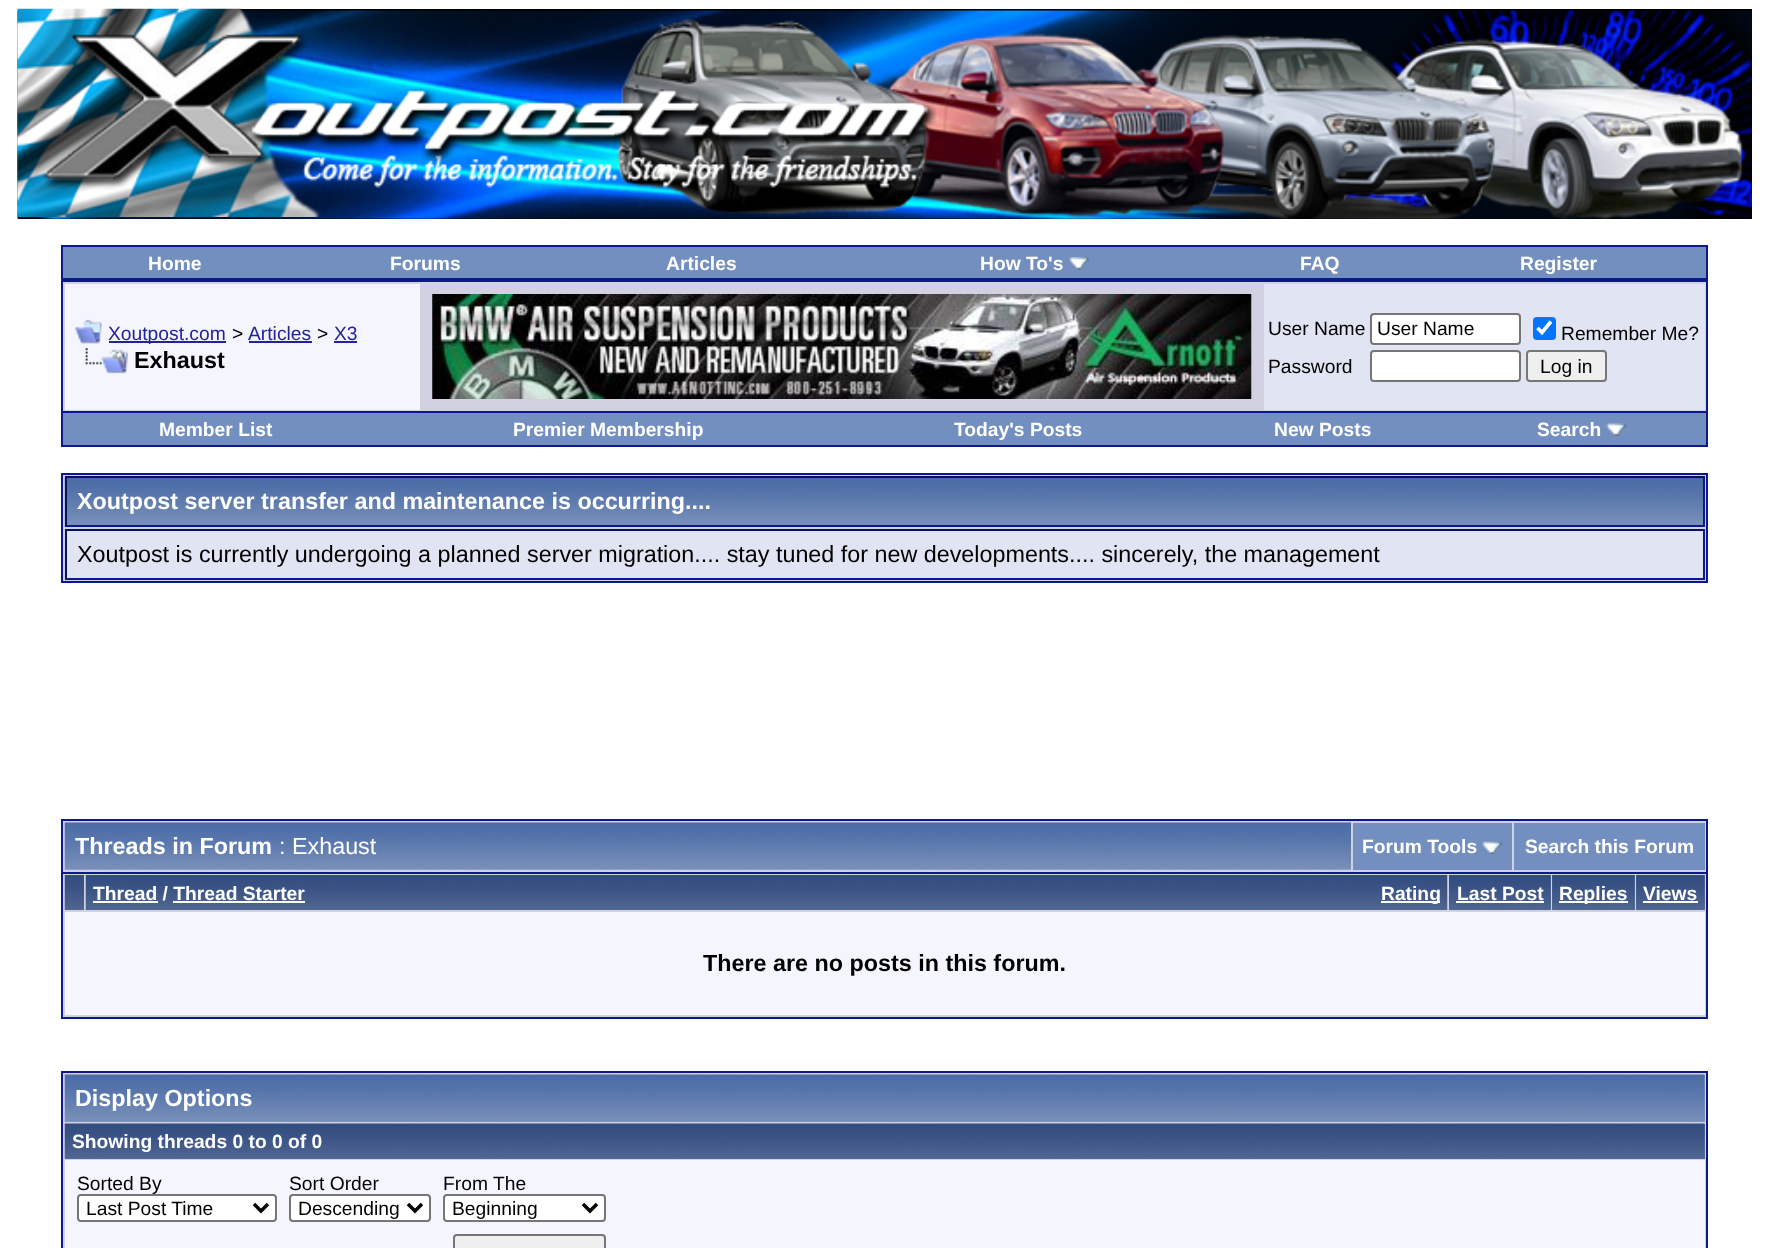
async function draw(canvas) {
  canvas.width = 1768;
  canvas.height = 1248;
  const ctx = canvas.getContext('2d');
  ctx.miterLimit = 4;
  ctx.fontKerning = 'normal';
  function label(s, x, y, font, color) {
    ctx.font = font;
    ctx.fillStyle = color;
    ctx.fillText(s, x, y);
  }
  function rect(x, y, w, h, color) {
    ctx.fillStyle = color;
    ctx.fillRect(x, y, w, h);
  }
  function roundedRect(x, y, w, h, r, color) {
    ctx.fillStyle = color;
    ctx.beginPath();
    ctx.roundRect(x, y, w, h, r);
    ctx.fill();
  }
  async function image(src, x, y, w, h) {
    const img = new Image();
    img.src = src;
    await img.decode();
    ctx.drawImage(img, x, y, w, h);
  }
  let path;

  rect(0, 0, 1768, 1248, '#fff');
  rect(18, 9, 1734, 210, '#000');
  await image('assets/img1.png', 17, 10, 1735, 209);
  await image('assets/img2.png', 17, 8, 920, 209);
  ctx.strokeStyle = '#0b198c';
  ctx.lineWidth = 2;
  ctx.strokeRect(62, 246, 1645, 33);
  rect(63, 247, 1643, 31, '#738fbf');
  label('Home', 148, 270, 'bold 19.25px Liberation Sans', '#fff');
  label('Forums', 390, 270, 'bold 19.25px Liberation Sans', '#fff');
  label('Articles', 666, 270, 'bold 19.25px Liberation Sans', '#fff');
  label('How To\'s', 980, 270, 'bold 19.25px Liberation Sans', '#fff');
  await image('assets/img3.png', 1069, 257, 20, 13);
  label('FAQ', 1300, 270, 'bold 19.25px Liberation Sans', '#fff');
  label('Register', 1520, 270, 'bold 19.25px Liberation Sans', '#fff');
  ctx.fillStyle = '#d1d1e1';
  ctx.beginPath();
  ctx.rect(62, 281, 1645, 131);
  ctx.fill();
  ctx.stroke();
  rect(65, 284, 355, 126, '#f5f5ff');
  await image('assets/img4.png', 75, 319, 27, 25);
  rect(109, 341, 117, 2, '#22229c');
  label('Xoutpost.com', 108, 340, '19.25px Liberation Sans', '#22229c');
  label('>', 232, 340, '19.25px Liberation Sans', '#000');
  label('Articles', 248, 340, '19.25px Liberation Sans', '#22229c');
  rect(249, 341, 63, 2, '#22229c');
  label('>', 317, 340, '19.25px Liberation Sans', '#000');
  label('X3', 334, 340, '19.25px Liberation Sans', '#22229c');
  rect(334, 341, 23, 2, '#22229c');
  await image('assets/img5.png', 85, 348, 43, 26);
  label('Exhaust', 134, 368, 'bold 23.33px Liberation Sans', '#000');
  await image('assets/img6.png', 432, 294, 820, 105);
  rect(1264, 284, 441, 126, '#e1e4f2');
  label('User Name', 1268, 335, '19.25px Liberation Sans', '#000');
  ctx.fillStyle = '#fff';
  ctx.beginPath();
  ctx.roundRect(1371, 314, 149, 30, 3);
  ctx.fill();
  ctx.strokeStyle = '#767676';
  ctx.stroke();
  label('User Name', 1377, 335, '19.25px Liberation Sans', '#000');
  roundedRect(1533, 317, 23, 23, 4, '#0075ff');
  path = new Path2D('M1537.5 328L1542 332.5L1551 321.5');
  ctx.strokeStyle = '#fff';
  ctx.lineWidth = 3.6;
  ctx.stroke(path);
  label('Remember Me?', 1561, 340, '19.25px Liberation Sans', '#000');
  label('Password', 1268, 373, '19.25px Liberation Sans', '#000');
  ctx.fillStyle = '#fff';
  ctx.beginPath();
  ctx.roundRect(1371, 351, 149, 30, 3);
  ctx.fill();
  ctx.strokeStyle = '#767676';
  ctx.lineWidth = 2;
  ctx.stroke();
  ctx.fillStyle = '#efefef';
  ctx.beginPath();
  ctx.roundRect(1527, 351, 79, 30, 3);
  ctx.fill();
  ctx.stroke();
  label('Log in', 1540, 373, '19.25px Liberation Sans', '#000');
  rect(1706, 413, 2, 33, '#0b198c');
  rect(61, 445, 1647, 2, '#0b198c');
  rect(61, 413, 2, 33, '#0b198c');
  rect(63, 413, 1643, 32, '#738fbf');
  label('Member List', 159, 436, 'bold 19.25px Liberation Sans', '#fff');
  label('Premier Membership', 513, 436, 'bold 19.25px Liberation Sans', '#fff');
  label('Today\'s Posts', 954, 436, 'bold 19.25px Liberation Sans', '#fff');
  label('New Posts', 1274, 436, 'bold 19.25px Liberation Sans', '#fff');
  label('Search', 1537, 436, 'bold 19.25px Liberation Sans', '#fff');
  await image('assets/img7.png', 1606, 423, 20, 13);
  ctx.fillStyle = '#d1d1e1';
  ctx.beginPath();
  ctx.rect(62, 474, 1645, 108);
  ctx.fill();
  ctx.strokeStyle = '#0b198c';
  ctx.stroke();
  await image('assets/img8.png', 64, 477, 1639, 50);
  rect(65, 476, 1640, 2, '#07115d');
  rect(1703, 476, 2, 51, '#0b198c');
  rect(65, 525, 1640, 2, '#0b198c');
  rect(65, 476, 2, 51, '#07115d');
  label('Xoutpost server transfer and maintenance is occurring....', 77, 509, 'bold 23.33px Liberation Sans', '#fff');
  rect(67, 531, 1636, 47, '#e1e4f2');
  rect(65, 529, 1640, 2, '#07115d');
  rect(1703, 529, 2, 50, '#0b198c');
  rect(65, 578, 1640, 2, '#0b198c');
  rect(65, 529, 2, 50, '#07115d');
  label('Xoutpost is currently undergoing a planned server migration.... stay tuned for new developments.... sincerely, the management', 77, 562, '23.33px Liberation Sans', '#000');
  rect(63, 821, 1643, 51, '#d1d1e1');
  rect(61, 819, 1647, 2, '#0b198c');
  rect(1706, 819, 2, 53, '#0b198c');
  rect(61, 819, 2, 53, '#0b198c');
  await image('assets/img9.png', 64, 822, 1287, 48);
  label('Threads in Forum', 75, 854, 'bold 23.33px Liberation Sans', '#fff');
  label(': Exhaust', 279, 854, '23.33px Liberation Sans', '#fff');
  rect(1353, 823, 159, 47, '#738fbf');
  label('Forum Tools', 1362, 853, 'bold 19.25px Liberation Sans', '#fff');
  await image('assets/img10.png', 1482, 841, 20, 13);
  rect(1514, 823, 191, 47, '#738fbf');
  label('Search this Forum', 1525, 853, 'bold 19.25px Liberation Sans', '#fff');
  ctx.fillStyle = '#d1d1e1';
  ctx.beginPath();
  ctx.rect(62, 873, 1645, 145);
  ctx.fill();
  ctx.stroke();
  await image('assets/img11.png', 64, 875, 20, 35);
  await image('assets/img12.png', 85, 875, 1363, 35);
  label('Thread / Thread Starter', 93, 900, 'bold 19.25px Liberation Sans', '#fff');
  rect(93, 901, 65, 2, '#fff');
  rect(1381, 901, 59, 2, '#fff');
  label('Rating', 1381, 900, 'bold 19.25px Liberation Sans', '#fff');
  rect(173, 901, 132, 2, '#fff');
  rect(1550, 875, 1, 35, '#5c7099');
  await image('assets/img13.png', 1449, 875, 102, 35);
  label('Last Post', 1457, 900, 'bold 19.25px Liberation Sans', '#fff');
  rect(1456, 901, 88, 2, '#fff');
  rect(1552, 875, 83, 35, '#5c7099');
  await image('assets/img14.png', 1552, 875, 83, 35);
  rect(1559, 901, 69, 2, '#fff');
  label('Replies', 1559, 900, 'bold 19.25px Liberation Sans', '#fff');
  rect(1636, 875, 69, 35, '#5c7099');
  await image('assets/img15.png', 1636, 875, 69, 35);
  label('Views', 1643, 900, 'bold 19.25px Liberation Sans', '#fff');
  rect(1643, 901, 55, 2, '#fff');
  rect(65, 912, 1640, 103, '#f5f5ff');
  label('There are no posts in this forum.', 703, 971, 'bold 23.33px Liberation Sans', '#000');
  ctx.fillStyle = '#d1d1e1';
  ctx.beginPath();
  ctx.rect(62, 1072, 1645, 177);
  ctx.fill();
  ctx.stroke();
  rect(65, 1075, 1640, 47, '#869bbf');
  await image('assets/img16.png', 64, 1074, 1641, 48);
  label('Display Options', 75, 1106, 'bold 23.33px Liberation Sans', '#fff');
  rect(65, 1124, 1640, 35, '#5c7099');
  await image('assets/img17.png', 64, 1123, 1641, 36);
  label('Showing threads 0 to 0 of 0', 72, 1148, 'bold 19.25px Liberation Sans', '#fff');
  rect(65, 1160, 1640, 88, '#f5f5ff');
  label('Sorted By', 77, 1190, '19.25px Liberation Sans', '#000');
  ctx.fillStyle = '#fff';
  ctx.beginPath();
  ctx.roundRect(78, 1195, 198, 26, 3);
  ctx.fill();
  ctx.strokeStyle = '#767676';
  ctx.stroke();
  path = new Path2D('M254 1204L261 1211L268 1204');
  ctx.strokeStyle = '#000';
  ctx.lineWidth = 3.5;
  ctx.stroke(path);
  label('Last Post Time', 86, 1215, '19.25px Liberation Sans', '#000');
  label('Sort Order', 289, 1190, '19.25px Liberation Sans', '#000');
  ctx.fillStyle = '#fff';
  ctx.beginPath();
  ctx.roundRect(290, 1195, 140, 26, 3);
  ctx.fill();
  ctx.strokeStyle = '#767676';
  ctx.lineWidth = 2;
  ctx.stroke();
  path = new Path2D('M408 1204L415 1211L422 1204');
  ctx.strokeStyle = '#000';
  ctx.lineWidth = 3.5;
  ctx.stroke(path);
  label('Descending', 298, 1215, '19.25px Liberation Sans', '#000');
  label('From The', 443, 1190, '19.25px Liberation Sans', '#000');
  ctx.fillStyle = '#fff';
  ctx.beginPath();
  ctx.roundRect(444, 1195, 161, 26, 3);
  ctx.fill();
  ctx.strokeStyle = '#767676';
  ctx.lineWidth = 2;
  ctx.stroke();
  path = new Path2D('M583 1204L590 1211L597 1204');
  ctx.strokeStyle = '#000';
  ctx.lineWidth = 3.5;
  ctx.stroke(path);
  label('Beginning', 452, 1215, '19.25px Liberation Sans', '#000');
  ctx.fillStyle = '#efefef';
  ctx.beginPath();
  ctx.roundRect(454, 1235, 151, 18, 3);
  ctx.fill();
  ctx.strokeStyle = '#767676';
  ctx.lineWidth = 2;
  ctx.stroke();
}

draw(document.querySelector('canvas'));
